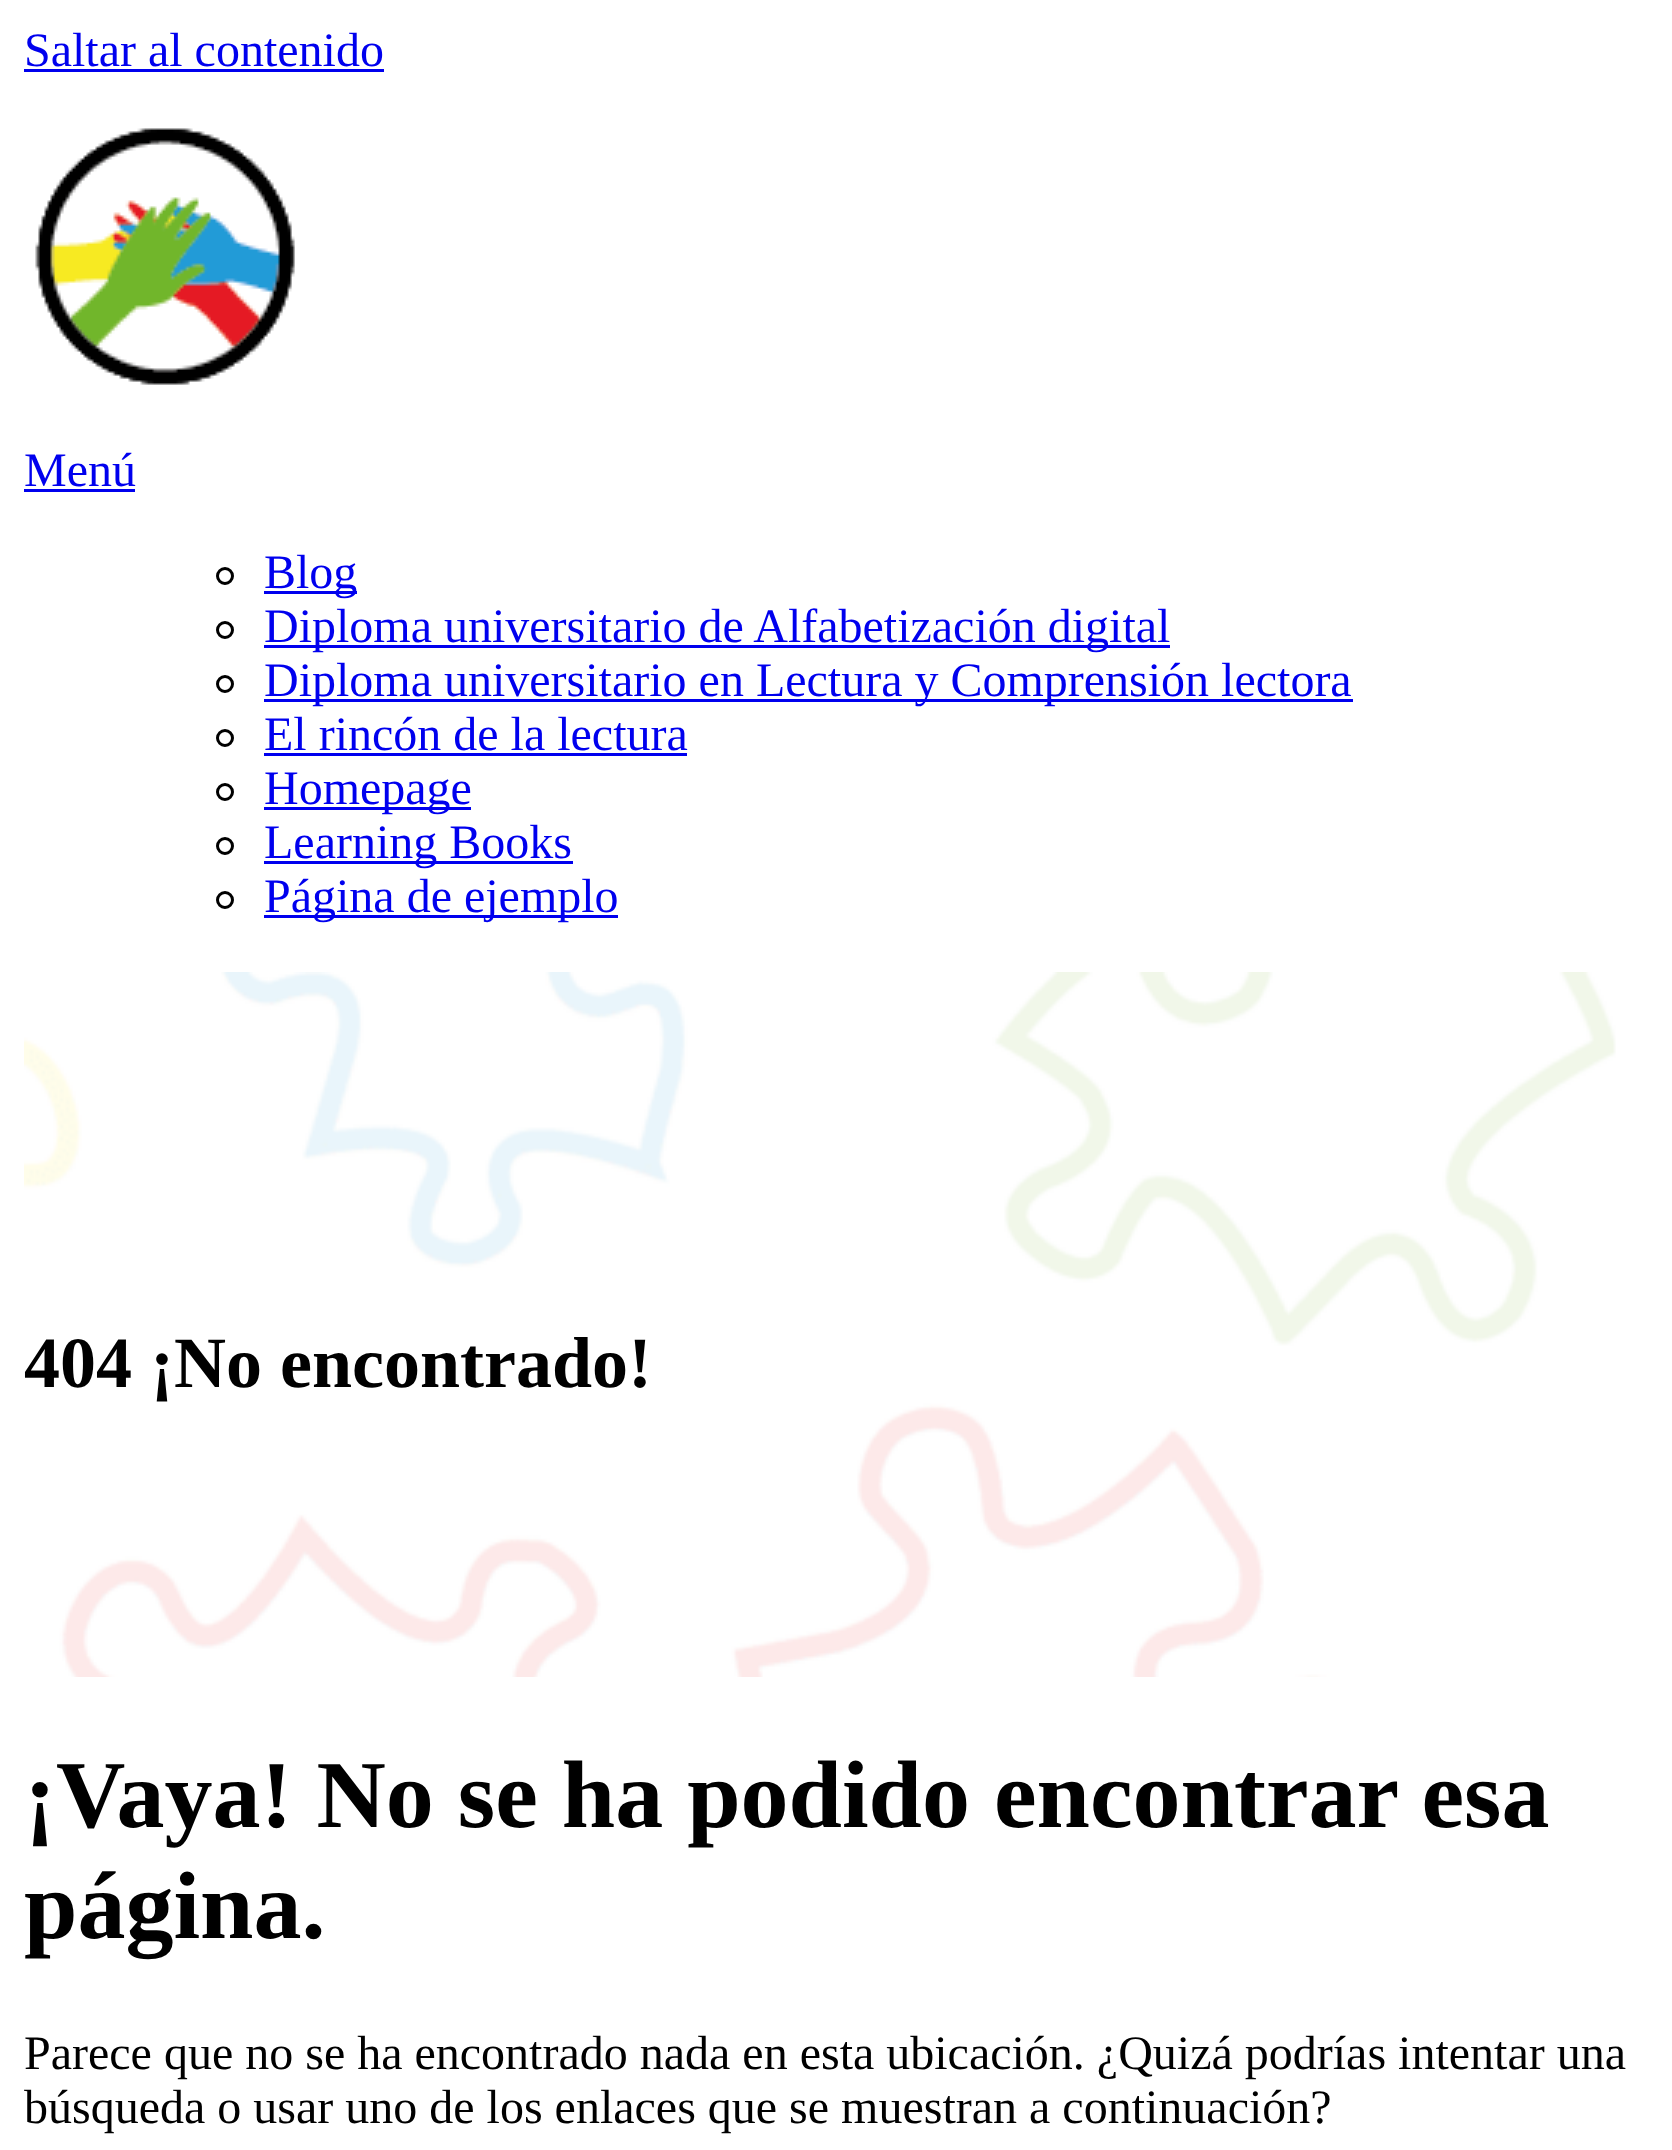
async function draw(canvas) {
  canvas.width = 1672;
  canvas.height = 2150;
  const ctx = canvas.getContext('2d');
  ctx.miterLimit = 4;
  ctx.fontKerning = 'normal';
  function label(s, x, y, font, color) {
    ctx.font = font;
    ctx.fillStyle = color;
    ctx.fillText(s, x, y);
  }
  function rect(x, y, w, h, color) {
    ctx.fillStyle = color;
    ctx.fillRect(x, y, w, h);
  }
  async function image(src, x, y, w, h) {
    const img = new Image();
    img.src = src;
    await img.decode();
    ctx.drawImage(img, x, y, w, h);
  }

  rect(0, 0, 1672, 2150, '#fff');
  label('Saltar al contenido', 24, 66, '48px Liberation Serif', '#00e');
  rect(24, 69, 360, 3, '#00e');
  await image('assets/img1.png', 35, 128, 260, 257);
  label('Menú', 24, 486, '48px Liberation Serif', '#00e');
  rect(24, 489, 111, 3, '#00e');
  ctx.beginPath();
  ctx.arc(225, 576, 7.5, 0, 2 * Math.PI);
  ctx.strokeStyle = '#000';
  ctx.lineWidth = 3;
  ctx.stroke();
  rect(264, 591, 93, 3, '#00e');
  label('Blog', 264, 588, '48px Liberation Serif', '#00e');
  ctx.beginPath();
  ctx.arc(225, 630, 7.5, 0, 2 * Math.PI);
  ctx.stroke();
  rect(264, 645, 906, 3, '#00e');
  label('Diploma universitario de Alfabetización digital', 264, 642, '48px Liberation Serif', '#00e');
  ctx.beginPath();
  ctx.arc(225, 684, 7.5, 0, 2 * Math.PI);
  ctx.stroke();
  rect(264, 699, 1089, 3, '#00e');
  label('Diploma universitario en Lectura y Comprensión lectora', 264, 696, '48px Liberation Serif', '#00e');
  ctx.beginPath();
  ctx.arc(225, 738, 7.5, 0, 2 * Math.PI);
  ctx.stroke();
  label('El rincón de la lectura', 264, 750, '48px Liberation Serif', '#00e');
  rect(264, 753, 423, 3, '#00e');
  ctx.beginPath();
  ctx.arc(225, 792, 7.5, 0, 2 * Math.PI);
  ctx.stroke();
  rect(264, 807, 207, 3, '#00e');
  label('Homepage', 264, 804, '48px Liberation Serif', '#00e');
  ctx.beginPath();
  ctx.arc(225, 846, 7.5, 0, 2 * Math.PI);
  ctx.stroke();
  rect(264, 861, 309, 3, '#00e');
  label('Learning Books', 264, 858, '48px Liberation Serif', '#00e');
  ctx.beginPath();
  ctx.arc(225, 900, 7.5, 0, 2 * Math.PI);
  ctx.stroke();
  rect(264, 915, 354, 3, '#00e');
  label('Página de ejemplo', 264, 912, '48px Liberation Serif', '#00e');
  await image('assets/img2.png', 24, 972, 1592, 705);
  label('404 ¡No encontrado!', 24, 1387, 'bold 72px Liberation Serif', '#000');
  label('¡Vaya! No se ha podido encontrar esa', 24, 1827, 'bold 96px Liberation Serif', '#000');
  label('página.', 24, 1938, 'bold 96px Liberation Serif', '#000');
  label('Parece que no se ha encontrado nada en esta ubicación. ¿Quizá podrías intentar una', 24, 2069, '48px Liberation Serif', '#000');
  label('búsqueda o usar uno de los enlaces que se muestran a continuación?', 24, 2123, '48px Liberation Serif', '#000');
}

draw(document.querySelector('canvas'));
